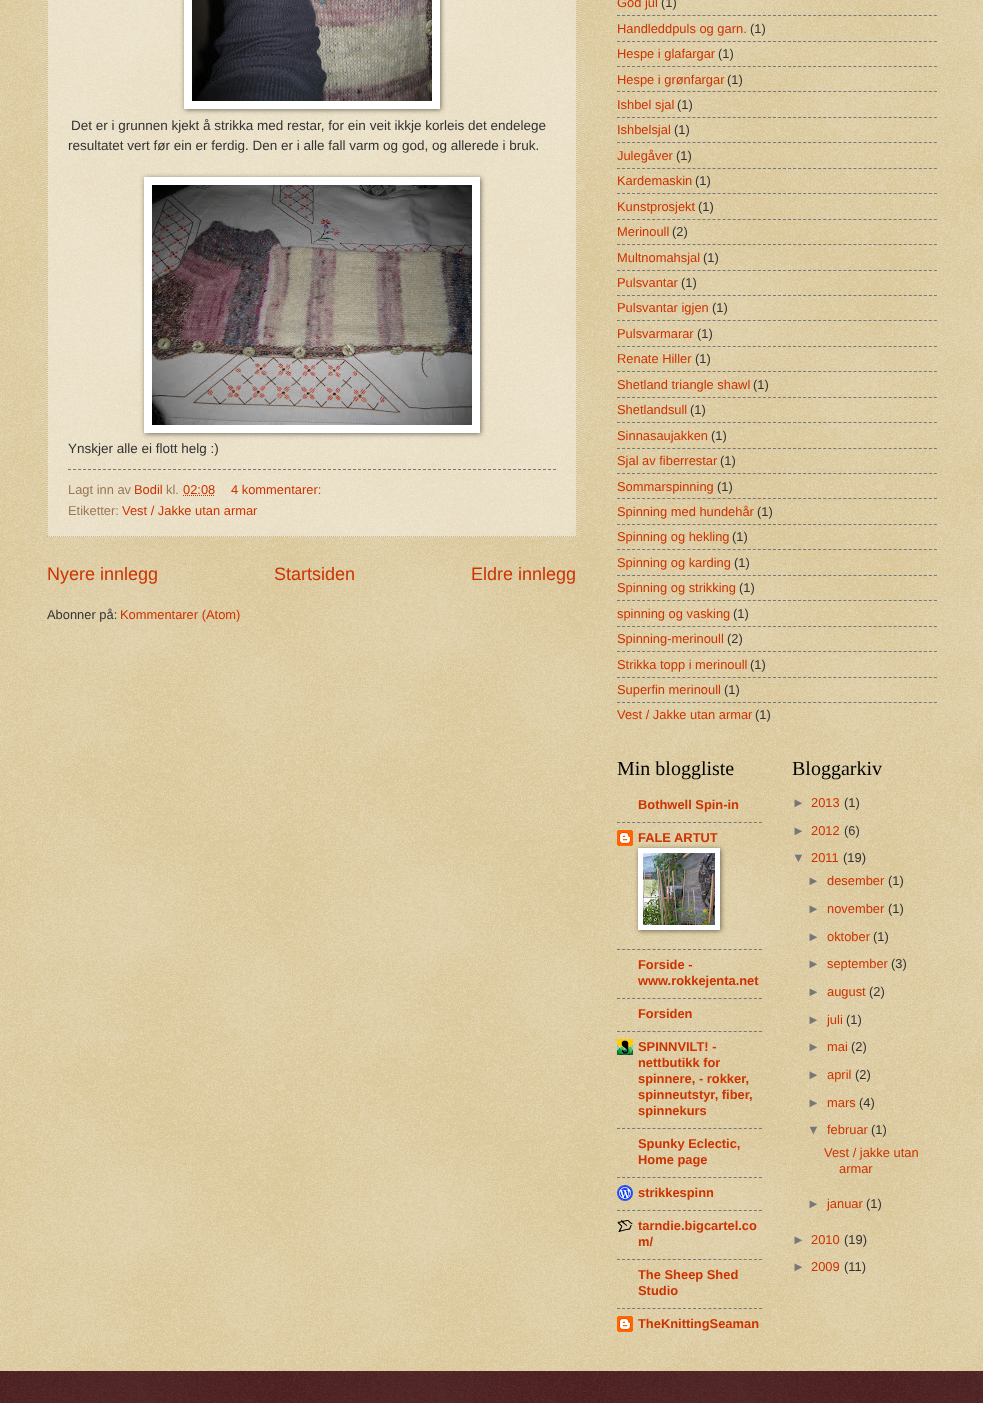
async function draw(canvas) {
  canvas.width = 983;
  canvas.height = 1403;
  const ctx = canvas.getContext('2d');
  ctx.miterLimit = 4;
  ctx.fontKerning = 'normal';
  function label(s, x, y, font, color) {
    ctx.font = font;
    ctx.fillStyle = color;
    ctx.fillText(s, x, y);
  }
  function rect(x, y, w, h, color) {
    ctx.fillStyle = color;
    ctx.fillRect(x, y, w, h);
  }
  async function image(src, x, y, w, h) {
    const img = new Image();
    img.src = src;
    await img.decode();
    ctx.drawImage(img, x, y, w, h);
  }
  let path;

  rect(0, 0, 983, 1403, '#c0a154');
  await image('assets/img1.png', 0, 0, 983, 1371);
  rect(47, 0, 530, 537, '#ffffff66');
  path = new Path2D('M576.5-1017V537');
  ctx.strokeStyle = '#cb9';
  ctx.setLineDash([1, 1]);
  ctx.stroke(path);
  path = new Path2D('M47 536.5H577');
  ctx.stroke(path);
  path = new Path2D('M47.5-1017V537');
  ctx.stroke(path);
  ctx.fillStyle = '#00000080';
  ctx.filter = 'blur(2.5px)';
  ctx.beginPath();
  ctx.rect(185, -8, 256, 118);
  ctx.fill();
  ctx.filter = 'none';
  rect(184, 0, 256, 109, '#fff');
  await image('assets/img2.png', 192, 0, 240, 101);
  label('Det er i grunnen kjekt å strikka med restar, for ein veit ikkje korleis det endelege', 71, 130, '13.5px Liberation Sans', '#333');
  label('resultatet vert før ein er ferdig. Den er i alle fall varm og god, og allerede i bruk.', 68, 150, '13.5px Liberation Sans', '#333');
  ctx.fillStyle = '#00000080';
  ctx.filter = 'blur(2.5px)';
  ctx.beginPath();
  ctx.rect(145, 178, 336, 256);
  ctx.fill();
  ctx.filter = 'none';
  rect(144, 177, 336, 256, '#fff');
  await image('assets/img3.png', 152, 185, 320, 240);
  label('Ynskjer alle ei flott helg :)', 68, 453, '13.5px Liberation Sans', '#333');
  path = new Path2D('M68 469.5H556');
  ctx.strokeStyle = '#777';
  ctx.setLineDash([3, 2]);
  ctx.stroke(path);
  label('Lagt inn av', 68, 494, '12.9px Liberation Sans', '#975');
  label('Bodil', 134, 494, '12.9px Liberation Sans', '#c30');
  label('kl.', 166, 494, '12.9px Liberation Sans', '#975');
  label('02:08', 183, 494, '12.9px Liberation Sans', '#c30');
  path = new Path2D('M183 495.5H215');
  ctx.strokeStyle = '#c30';
  ctx.setLineDash([1, 1]);
  ctx.stroke(path);
  label('4 kommentarer:', 231, 494, '12.9px Liberation Sans', '#c30');
  label('Etiketter:', 68, 515, '12.9px Liberation Sans', '#975');
  label('Vest / Jakke utan armar', 122, 515, '12.9px Liberation Sans', '#c30');
  label('Nyere innlegg', 47, 580, '18px Liberation Sans', '#c30');
  label('Startsiden', 274, 580, '18px Liberation Sans', '#c30');
  label('Eldre innlegg', 471, 580, '18px Liberation Sans', '#c30');
  label('Abonner på:', 47, 619, '12.9px Liberation Sans', '#333');
  label('Kommentarer (Atom)', 120, 619, '12.9px Liberation Sans', '#c30');
  label('God jul', 617, 7, '12.9px Liberation Sans', '#c30');
  label('(1)', 661, 7, '12.9px Liberation Sans', '#333');
  path = new Path2D('M617 15.5H937');
  ctx.strokeStyle = '#777';
  ctx.setLineDash([3, 2.03]);
  ctx.stroke(path);
  label('Handleddpuls og garn.', 617, 33, '12.9px Liberation Sans', '#c30');
  label('(1)', 750, 33, '12.9px Liberation Sans', '#333');
  path = new Path2D('M617 41.5H937');
  ctx.stroke(path);
  label('Hespe i glafargar', 617, 58, '12.9px Liberation Sans', '#c30');
  label('(1)', 718, 58, '12.9px Liberation Sans', '#333');
  path = new Path2D('M617 66.5H937');
  ctx.stroke(path);
  label('Hespe i grønfargar', 617, 84, '12.9px Liberation Sans', '#c30');
  label('(1)', 727, 84, '12.9px Liberation Sans', '#333');
  path = new Path2D('M617 91.5H937');
  ctx.stroke(path);
  label('Ishbel sjal', 617, 109, '12.9px Liberation Sans', '#c30');
  label('(1)', 677, 109, '12.9px Liberation Sans', '#333');
  path = new Path2D('M617 117.5H937');
  ctx.stroke(path);
  label('Ishbelsjal', 617, 134, '12.9px Liberation Sans', '#c30');
  label('(1)', 674, 134, '12.9px Liberation Sans', '#333');
  path = new Path2D('M617 142.5H937');
  ctx.stroke(path);
  label('Julegåver', 617, 160, '12.9px Liberation Sans', '#c30');
  label('(1)', 676, 160, '12.9px Liberation Sans', '#333');
  path = new Path2D('M617 168.5H937');
  ctx.stroke(path);
  label('Kardemaskin', 617, 185, '12.9px Liberation Sans', '#c30');
  label('(1)', 695, 185, '12.9px Liberation Sans', '#333');
  path = new Path2D('M617 193.5H937');
  ctx.stroke(path);
  label('Kunstprosjekt', 617, 211, '12.9px Liberation Sans', '#c30');
  label('(1)', 698, 211, '12.9px Liberation Sans', '#333');
  path = new Path2D('M617 219.5H937');
  ctx.stroke(path);
  label('Merinoull', 617, 236, '12.9px Liberation Sans', '#c30');
  label('(2)', 672, 236, '12.9px Liberation Sans', '#333');
  path = new Path2D('M617 244.5H937');
  ctx.stroke(path);
  label('Multnomahsjal', 617, 262, '12.9px Liberation Sans', '#c30');
  label('(1)', 703, 262, '12.9px Liberation Sans', '#333');
  path = new Path2D('M617 270.5H937');
  ctx.stroke(path);
  label('Pulsvantar', 617, 287, '12.9px Liberation Sans', '#c30');
  label('(1)', 681, 287, '12.9px Liberation Sans', '#333');
  path = new Path2D('M617 295.5H937');
  ctx.stroke(path);
  label('Pulsvantar igjen', 617, 312, '12.9px Liberation Sans', '#c30');
  label('(1)', 712, 312, '12.9px Liberation Sans', '#333');
  path = new Path2D('M617 320.5H937');
  ctx.stroke(path);
  label('Pulsvarmarar', 617, 338, '12.9px Liberation Sans', '#c30');
  label('(1)', 697, 338, '12.9px Liberation Sans', '#333');
  path = new Path2D('M617 346.5H937');
  ctx.stroke(path);
  label('Renate Hiller', 617, 363, '12.9px Liberation Sans', '#c30');
  label('(1)', 695, 363, '12.9px Liberation Sans', '#333');
  path = new Path2D('M617 371.5H937');
  ctx.stroke(path);
  label('Shetland triangle shawl', 617, 389, '12.9px Liberation Sans', '#c30');
  label('(1)', 753, 389, '12.9px Liberation Sans', '#333');
  path = new Path2D('M617 397.5H937');
  ctx.stroke(path);
  label('Shetlandsull', 617, 414, '12.9px Liberation Sans', '#c30');
  label('(1)', 690, 414, '12.9px Liberation Sans', '#333');
  path = new Path2D('M617 422.5H937');
  ctx.stroke(path);
  label('Sinnasaujakken', 617, 440, '12.9px Liberation Sans', '#c30');
  label('(1)', 711, 440, '12.9px Liberation Sans', '#333');
  path = new Path2D('M617 448.5H937');
  ctx.stroke(path);
  label('Sjal av fiberrestar', 617, 465, '12.9px Liberation Sans', '#c30');
  label('(1)', 720, 465, '12.9px Liberation Sans', '#333');
  path = new Path2D('M617 473.5H937');
  ctx.stroke(path);
  label('Sommarspinning', 617, 491, '12.9px Liberation Sans', '#c30');
  label('(1)', 717, 491, '12.9px Liberation Sans', '#333');
  path = new Path2D('M617 498.5H937');
  ctx.stroke(path);
  label('Spinning med hundehår', 617, 516, '12.9px Liberation Sans', '#c30');
  label('(1)', 757, 516, '12.9px Liberation Sans', '#333');
  path = new Path2D('M617 524.5H937');
  ctx.stroke(path);
  label('Spinning og hekling', 617, 541, '12.9px Liberation Sans', '#c30');
  label('(1)', 732, 541, '12.9px Liberation Sans', '#333');
  path = new Path2D('M617 549.5H937');
  ctx.stroke(path);
  label('Spinning og karding', 617, 567, '12.9px Liberation Sans', '#c30');
  label('(1)', 734, 567, '12.9px Liberation Sans', '#333');
  path = new Path2D('M617 575.5H937');
  ctx.stroke(path);
  label('Spinning og strikking', 617, 592, '12.9px Liberation Sans', '#c30');
  label('(1)', 739, 592, '12.9px Liberation Sans', '#333');
  path = new Path2D('M617 600.5H937');
  ctx.stroke(path);
  label('spinning og vasking', 617, 618, '12.9px Liberation Sans', '#c30');
  label('(1)', 733, 618, '12.9px Liberation Sans', '#333');
  path = new Path2D('M617 626.5H937');
  ctx.stroke(path);
  label('Spinning-merinoull', 617, 643, '12.9px Liberation Sans', '#c30');
  label('(2)', 727, 643, '12.9px Liberation Sans', '#333');
  path = new Path2D('M617 651.5H937');
  ctx.stroke(path);
  label('Strikka topp i merinoull', 617, 669, '12.9px Liberation Sans', '#c30');
  label('(1)', 750, 669, '12.9px Liberation Sans', '#333');
  path = new Path2D('M617 677.5H937');
  ctx.stroke(path);
  label('Superfin merinoull', 617, 694, '12.9px Liberation Sans', '#c30');
  label('(1)', 724, 694, '12.9px Liberation Sans', '#333');
  path = new Path2D('M617 702.5H937');
  ctx.stroke(path);
  label('Vest / Jakke utan armar', 617, 719, '12.9px Liberation Sans', '#c30');
  label('(1)', 755, 719, '12.9px Liberation Sans', '#333');
  label('Min bloggliste', 617, 775, '20px Liberation Serif', '#000');
  label('Bothwell Spin-in', 638, 809, 'bold 12.9px Liberation Sans', '#c30');
  path = new Path2D('M617 822.5H762');
  ctx.setLineDash([3, 2.07]);
  ctx.stroke(path);
  await image('assets/img4.png', 617, 830, 16, 16);
  label('FALE ARTUT', 638, 842, 'bold 12.9px Liberation Sans', '#c30');
  ctx.fillStyle = '#00000080';
  ctx.filter = 'blur(2.5px)';
  ctx.beginPath();
  ctx.rect(639, 849, 82, 82);
  ctx.fill();
  ctx.filter = 'none';
  rect(638, 848, 82, 82, '#fff');
  await image('assets/img5.png', 643, 853, 72, 72);
  path = new Path2D('M617 949.5H762');
  ctx.stroke(path);
  label('Forside -', 638, 969, 'bold 12.9px Liberation Sans', '#c30');
  label('www.rokkejenta.net', 638, 985, 'bold 12.9px Liberation Sans', '#c30');
  path = new Path2D('M617 998.5H762');
  ctx.stroke(path);
  label('Forsiden', 638, 1018, 'bold 12.9px Liberation Sans', '#c30');
  path = new Path2D('M617 1031.5H762');
  ctx.stroke(path);
  await image('assets/img6.png', 617, 1039, 16, 16);
  label('SPINNVILT! -', 638, 1051, 'bold 12.9px Liberation Sans', '#c30');
  label('nettbutikk for', 638, 1067, 'bold 12.9px Liberation Sans', '#c30');
  label('spinnere, - rokker,', 638, 1083, 'bold 12.9px Liberation Sans', '#c30');
  label('spinneutstyr, fiber,', 638, 1099, 'bold 12.9px Liberation Sans', '#c30');
  label('spinnekurs', 638, 1115, 'bold 12.9px Liberation Sans', '#c30');
  path = new Path2D('M617 1128.5H762');
  ctx.stroke(path);
  label('Spunky Eclectic,', 638, 1148, 'bold 12.9px Liberation Sans', '#c30');
  label('Home page', 638, 1164, 'bold 12.9px Liberation Sans', '#c30');
  path = new Path2D('M617 1177.5H762');
  ctx.stroke(path);
  await image('assets/img7.png', 617, 1185, 16, 16);
  label('strikkespinn', 638, 1197, 'bold 12.9px Liberation Sans', '#c30');
  path = new Path2D('M617 1210.5H762');
  ctx.stroke(path);
  await image('assets/img8.png', 617, 1220, 16, 12);
  label('tarndie.bigcartel.co', 638, 1230, 'bold 12.9px Liberation Sans', '#c30');
  label('m/', 638, 1246, 'bold 12.9px Liberation Sans', '#c30');
  path = new Path2D('M617 1259.5H762');
  ctx.stroke(path);
  label('The Sheep Shed', 638, 1279, 'bold 12.9px Liberation Sans', '#c30');
  label('Studio', 638, 1295, 'bold 12.9px Liberation Sans', '#c30');
  path = new Path2D('M617 1308.5H762');
  ctx.stroke(path);
  await image('assets/img9.png', 617, 1316, 16, 16);
  label('TheKnittingSeaman', 638, 1328, 'bold 12.9px Liberation Sans', '#c30');
  label('Bloggarkiv', 792, 775, '20px Liberation Serif', '#000');
  label('►', 792, 807, '12.9px Liberation Sans', '#777');
  label('2013', 811, 807, '12.9px Liberation Sans', '#c30');
  label('(1)', 844, 807, '12.9px Liberation Sans', '#333');
  label('►', 792, 835, '12.9px Liberation Sans', '#777');
  label('2012', 811, 835, '12.9px Liberation Sans', '#c30');
  label('(6)', 844, 835, '12.9px Liberation Sans', '#333');
  label('▼', 792, 862, '12.9px Liberation Sans', '#777');
  label('2011', 811, 862, '12.9px Liberation Sans', '#c30');
  label('(19)', 843, 862, '12.9px Liberation Sans', '#333');
  label('►', 807, 885, '12.9px Liberation Sans', '#777');
  label('desember', 827, 885, '12.9px Liberation Sans', '#c30');
  label('(1)', 888, 885, '12.9px Liberation Sans', '#333');
  label('►', 807, 913, '12.9px Liberation Sans', '#777');
  label('november', 827, 913, '12.9px Liberation Sans', '#c30');
  label('(1)', 888, 913, '12.9px Liberation Sans', '#333');
  label('►', 807, 941, '12.9px Liberation Sans', '#777');
  label('oktober', 827, 941, '12.9px Liberation Sans', '#c30');
  label('(1)', 873, 941, '12.9px Liberation Sans', '#333');
  label('►', 807, 968, '12.9px Liberation Sans', '#777');
  label('september', 827, 968, '12.9px Liberation Sans', '#c30');
  label('(3)', 891, 968, '12.9px Liberation Sans', '#333');
  label('►', 807, 996, '12.9px Liberation Sans', '#777');
  label('august', 827, 996, '12.9px Liberation Sans', '#c30');
  label('(2)', 869, 996, '12.9px Liberation Sans', '#333');
  label('►', 807, 1024, '12.9px Liberation Sans', '#777');
  label('juli', 827, 1024, '12.9px Liberation Sans', '#c30');
  label('(1)', 846, 1024, '12.9px Liberation Sans', '#333');
  label('►', 807, 1051, '12.9px Liberation Sans', '#777');
  label('mai', 827, 1051, '12.9px Liberation Sans', '#c30');
  label('(2)', 851, 1051, '12.9px Liberation Sans', '#333');
  label('►', 807, 1079, '12.9px Liberation Sans', '#777');
  label('april', 827, 1079, '12.9px Liberation Sans', '#c30');
  label('(2)', 855, 1079, '12.9px Liberation Sans', '#333');
  label('►', 807, 1107, '12.9px Liberation Sans', '#777');
  label('mars', 827, 1107, '12.9px Liberation Sans', '#c30');
  label('(4)', 859, 1107, '12.9px Liberation Sans', '#333');
  label('▼', 807, 1134, '12.9px Liberation Sans', '#777');
  label('februar', 827, 1134, '12.9px Liberation Sans', '#c30');
  label('(1)', 871, 1134, '12.9px Liberation Sans', '#333');
  label('Vest / jakke utan', 824, 1157, '12.9px Liberation Sans', '#c30');
  label('armar', 839, 1173, '12.9px Liberation Sans', '#c30');
  label('►', 807, 1208, '12.9px Liberation Sans', '#777');
  label('januar', 827, 1208, '12.9px Liberation Sans', '#c30');
  label('(1)', 866, 1208, '12.9px Liberation Sans', '#333');
  label('►', 792, 1244, '12.9px Liberation Sans', '#777');
  label('2010', 811, 1244, '12.9px Liberation Sans', '#c30');
  label('(19)', 844, 1244, '12.9px Liberation Sans', '#333');
  label('►', 792, 1271, '12.9px Liberation Sans', '#777');
  label('2009', 811, 1271, '12.9px Liberation Sans', '#c30');
  label('(11)', 844, 1271, '12.9px Liberation Sans', '#333');
  rect(0, 1371, 983, 32, '#300');
  await image('assets/img10.png', 0, 1371, 983, 32);
}

draw(document.querySelector('canvas'));
